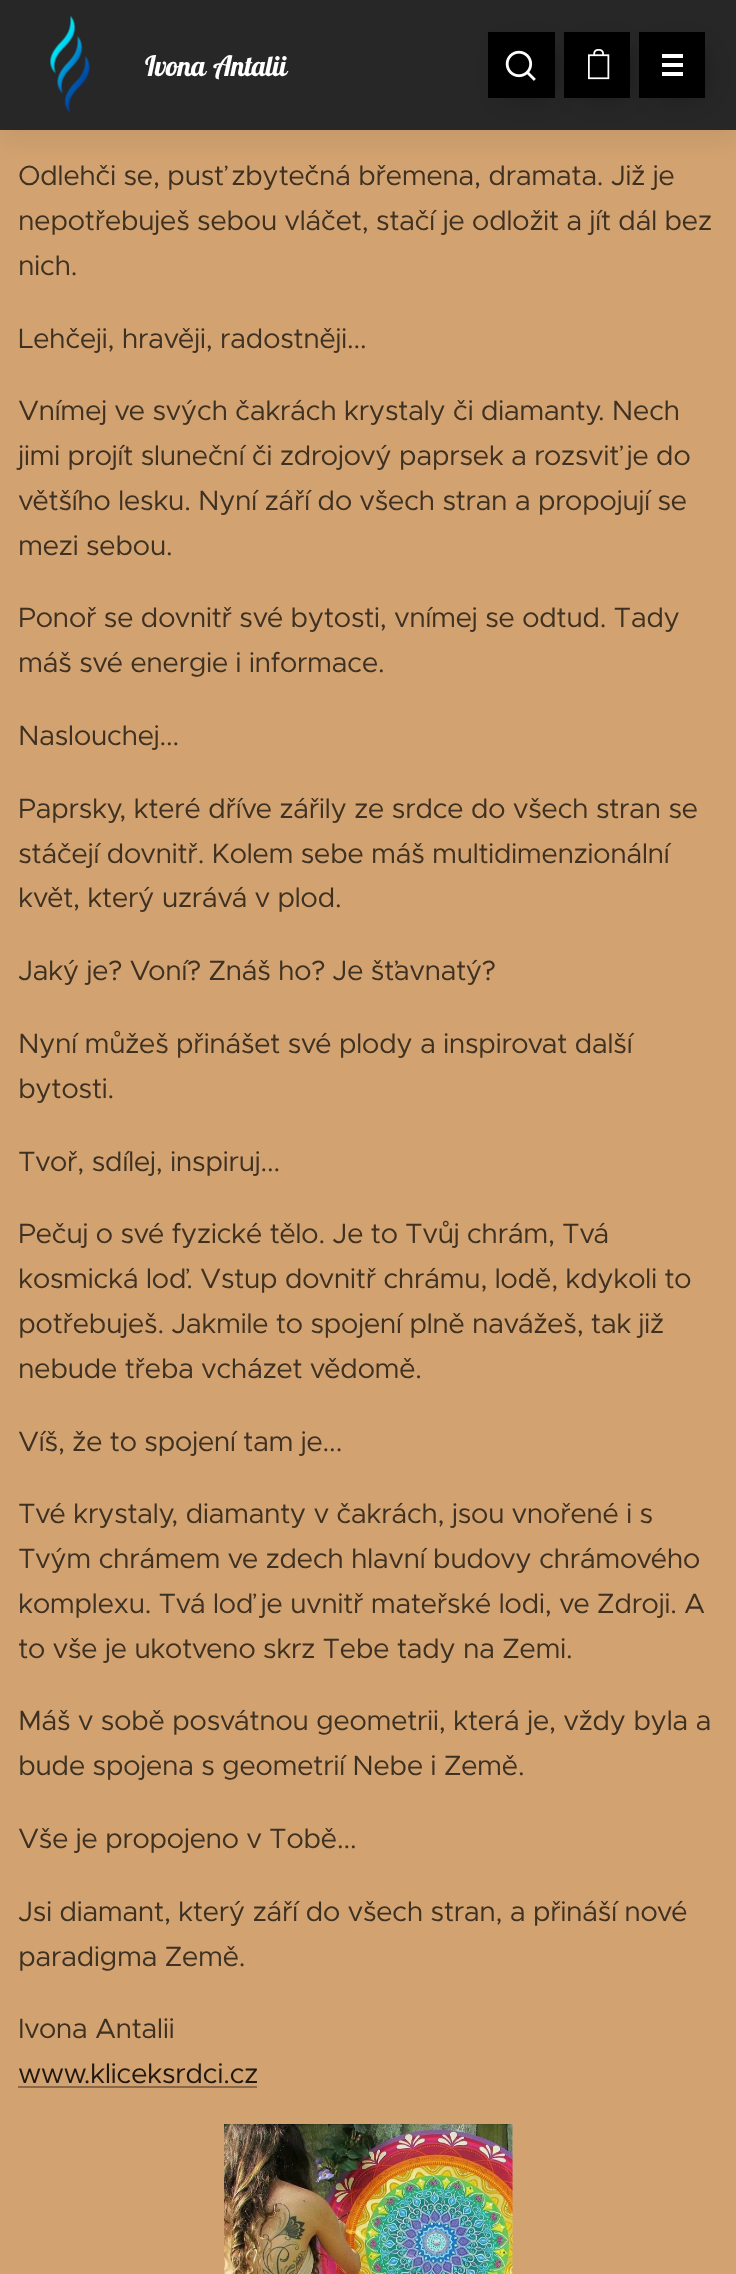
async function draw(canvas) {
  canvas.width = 736;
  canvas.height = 2274;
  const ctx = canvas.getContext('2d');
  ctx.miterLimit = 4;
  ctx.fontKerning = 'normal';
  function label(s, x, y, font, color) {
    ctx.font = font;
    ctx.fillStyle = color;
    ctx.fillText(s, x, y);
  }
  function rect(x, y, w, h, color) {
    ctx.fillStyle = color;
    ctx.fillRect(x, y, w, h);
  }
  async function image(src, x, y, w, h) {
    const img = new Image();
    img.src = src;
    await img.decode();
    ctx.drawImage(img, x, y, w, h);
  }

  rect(0, 0, 736, 2274, '#d2a270');
  ctx.fillStyle = '#00000012';
  ctx.filter = 'blur(13px)';
  ctx.beginPath();
  ctx.rect(0, 9, 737, 129);
  ctx.fill();
  ctx.filter = 'none';
  rect(0, 0, 736, 130, '#272727');
  await image('assets/img1.png', 50, 16, 40, 98);
  ctx.letterSpacing = '-0.55px';
  label('Ivona', 145, 76, '28px Lobster', '#fff');
  label('Antalii', 213, 76, '28px Lobster', '#fff');
  ctx.fillStyle = '#00000080';
  ctx.filter = 'blur(14px)';
  ctx.beginPath();
  ctx.rect(509, 53, 39, 38);
  ctx.fill();
  ctx.filter = 'none';
  rect(488, 32, 67, 66, '#000');
  await image('assets/img2.png', 505, 50, 31, 31);
  ctx.fillStyle = '#00000080';
  ctx.filter = 'blur(14px)';
  ctx.beginPath();
  ctx.rect(585, 53, 38, 38);
  ctx.fill();
  ctx.filter = 'none';
  rect(564, 32, 66, 66, '#000');
  await image('assets/img3.png', 588, 49, 22, 31);
  ctx.fillStyle = '#00000080';
  ctx.filter = 'blur(14px)';
  ctx.beginPath();
  ctx.rect(660, 53, 38, 38);
  ctx.fill();
  ctx.filter = 'none';
  rect(639, 32, 66, 66, '#000');
  rect(662, 63, 21, 4, '#fff');
  rect(662, 54, 21, 4, '#fff');
  rect(662, 72, 21, 4, '#fff');
  label('Odlehči se, pusť zbytečná břemena, dramata. Již je', 18, 185, '28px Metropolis', '#3f3122');
  label('nepotřebuješ sebou vláčet, stačí je odložit a jít dál bez', 18, 230, '28px Metropolis', '#3f3122');
  label('nich.', 18, 275, '28px Metropolis', '#3f3122');
  label('Lehčeji, hravěji, radostněji...', 18, 348, '28px Metropolis', '#3f3122');
  label('Vnímej ve svých čakrách krystaly či diamanty. Nech', 18, 420, '28px Metropolis', '#3f3122');
  label('jimi projít sluneční či zdrojový paprsek a rozsviť je do', 18, 465, '28px Metropolis', '#3f3122');
  label('většího lesku. Nyní září do všech stran a propojují se', 18, 510, '28px Metropolis', '#3f3122');
  label('mezi sebou.', 18, 555, '28px Metropolis', '#3f3122');
  label('Ponoř se dovnitř své bytosti, vnímej se odtud. Tady', 18, 627, '28px Metropolis', '#3f3122');
  label('máš své energie i informace.', 18, 672, '28px Metropolis', '#3f3122');
  label('Naslouchej...', 18, 745, '28px Metropolis', '#3f3122');
  label('Paprsky, které dříve zářily ze srdce do všech stran se', 18, 818, '28px Metropolis', '#3f3122');
  label('stáčejí dovnitř. Kolem sebe máš multidimenzionální', 18, 863, '28px Metropolis', '#3f3122');
  label('květ, který uzrává v plod.', 18, 907, '28px Metropolis', '#3f3122');
  label('Jaký je? Voní? Znáš ho? Je šťavnatý?', 18, 980, '28px Metropolis', '#3f3122');
  label('Nyní můžeš přinášet své plody a inspirovat další', 18, 1053, '28px Metropolis', '#3f3122');
  label('bytosti.', 18, 1098, '28px Metropolis', '#3f3122');
  label('Tvoř, sdílej, inspiruj...', 18, 1171, '28px Metropolis', '#3f3122');
  label('Pečuj o své fyzické tělo. Je to Tvůj chrám, Tvá', 18, 1243, '28px Metropolis', '#3f3122');
  label('kosmická loď. Vstup dovnitř chrámu, lodě, kdykoli to', 18, 1288, '28px Metropolis', '#3f3122');
  label('potřebuješ. Jakmile to spojení plně navážeš, tak již', 18, 1333, '28px Metropolis', '#3f3122');
  label('nebude třeba vcházet vědomě.', 18, 1378, '28px Metropolis', '#3f3122');
  label('Víš, že to spojení tam je...', 18, 1451, '28px Metropolis', '#3f3122');
  label('Tvé krystaly, diamanty v čakrách, jsou vnořené i s', 18, 1523, '28px Metropolis', '#3f3122');
  label('Tvým chrámem ve zdech hlavní budovy chrámového', 18, 1568, '28px Metropolis', '#3f3122');
  label('komplexu. Tvá loď je uvnitř mateřské lodi, ve Zdroji. A', 18, 1613, '28px Metropolis', '#3f3122');
  label('to vše je ukotveno skrz Tebe tady na Zemi.', 18, 1658, '28px Metropolis', '#3f3122');
  label('Máš v sobě posvátnou geometrii, která je, vždy byla a', 18, 1730, '28px Metropolis', '#3f3122');
  label('bude spojena s geometrií Nebe i Země.', 18, 1775, '28px Metropolis', '#3f3122');
  label('Vše je propojeno v Tobě...', 18, 1848, '28px Metropolis', '#3f3122');
  label('Jsi diamant, který září do všech stran, a přináší nové', 18, 1921, '28px Metropolis', '#3f3122');
  label('paradigma Země.', 18, 1966, '28px Metropolis', '#3f3122');
  label('Ivona Antalii', 18, 2038, '28px Metropolis', '#3f3122');
  label('www.kliceksrdci.cz', 18, 2083, '28px Metropolis', '#201811');
  rect(18, 2086, 239, 2, '#896949');
  await image('assets/img4.png', 224, 2124, 289, 150);
}

draw(document.querySelector('canvas'));
